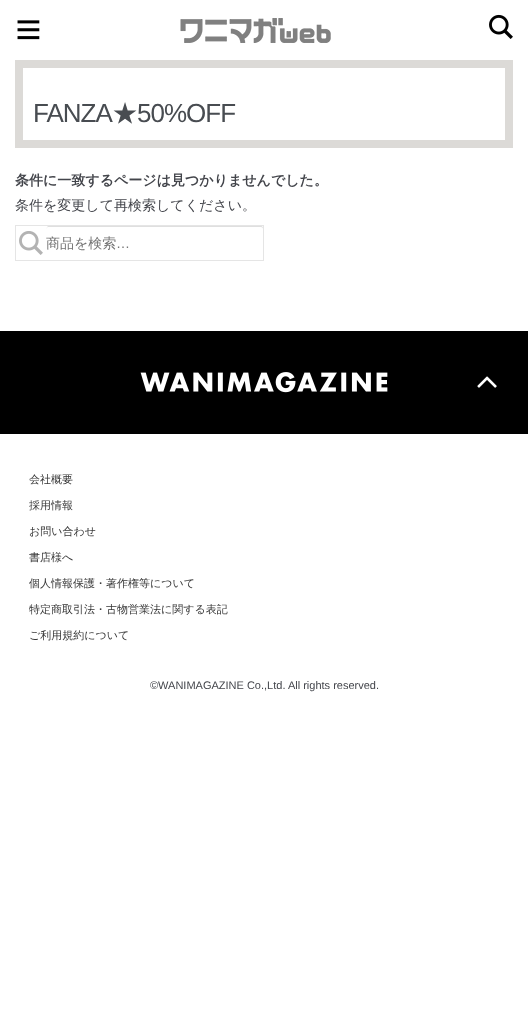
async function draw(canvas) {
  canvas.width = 528;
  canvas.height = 1026;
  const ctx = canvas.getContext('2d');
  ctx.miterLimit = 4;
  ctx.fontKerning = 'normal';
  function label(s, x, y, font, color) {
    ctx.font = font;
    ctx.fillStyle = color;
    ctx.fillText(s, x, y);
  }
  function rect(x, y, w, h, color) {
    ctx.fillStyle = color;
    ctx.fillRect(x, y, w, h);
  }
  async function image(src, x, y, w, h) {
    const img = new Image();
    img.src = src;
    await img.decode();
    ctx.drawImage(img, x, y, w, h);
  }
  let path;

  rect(0, 0, 528, 1026, '#fff');
  await image('assets/img1.png', 17, 20, 23, 20);
  await image('assets/img2.png', 180, 18, 151, 25);
  await image('assets/img3.png', 489, 14, 24, 25);
  ctx.strokeStyle = '#dcdad7';
  ctx.lineWidth = 8;
  ctx.strokeRect(19, 64, 490, 80);
  ctx.letterSpacing = '-1px';
  label('FANZA', 33, 122, '26px Liberation Sans', '#484c51');
  label('★', 112, 122, '500 26px WenQuanYi Zen Hei', '#484c51');
  label('50%OFF', 137, 122, '26px Liberation Sans', '#484c51');
  ctx.letterSpacing = '0px';
  label('条件に一致するページは見つかりませんでした。', 15, 185, 'bold 14px WenQuanYi Zen Hei', '#43454b');
  label('条件を変更して再検索してください。', 15, 210, '500 14px WenQuanYi Zen Hei', '#43454b');
  ctx.strokeStyle = '#e5e5e5';
  ctx.lineWidth = 1;
  ctx.strokeRect(15.5, 225.5, 248, 35);
  await image('assets/img4.png', 19, 231, 24, 24);
  ctx.fillStyle = '#dfdfdf';
  path = new Path2D('M48 227H261C262 227 263 228 263 229C263 228 263 226 261 226H48L47 227L46 229C46 228 47 227 48 227Z');
  ctx.fill(path);
  label('商品を検索', 46, 248, '500 14px WenQuanYi Zen Hei', '#757575');
  label('…', 116, 248, '14px Liberation Sans', '#757575');
  await image('assets/img5.png', 0, 331, 528, 103);
  label('会社概要', 29, 483, '500 11px WenQuanYi Zen Hei', '#363636');
  label('採用情報', 29, 509, '500 11px WenQuanYi Zen Hei', '#363636');
  label('お問い合わせ', 29, 535, '500 11px WenQuanYi Zen Hei', '#363636');
  label('書店様へ', 29, 561, '500 11px WenQuanYi Zen Hei', '#363636');
  label('個人情報保護・著作権等について', 29, 587, '500 11px WenQuanYi Zen Hei', '#363636');
  label('特定商取引法・古物営業法に関する表記', 29, 613, '500 11px WenQuanYi Zen Hei', '#363636');
  label('ご利用規約について', 29, 639, '500 11px WenQuanYi Zen Hei', '#363636');
  label('©WANIMAGAZINE Co.,Ltd. All rights reserved.', 150, 689, '11px Liberation Sans', '#43454b');
}

draw(document.querySelector('canvas'));
